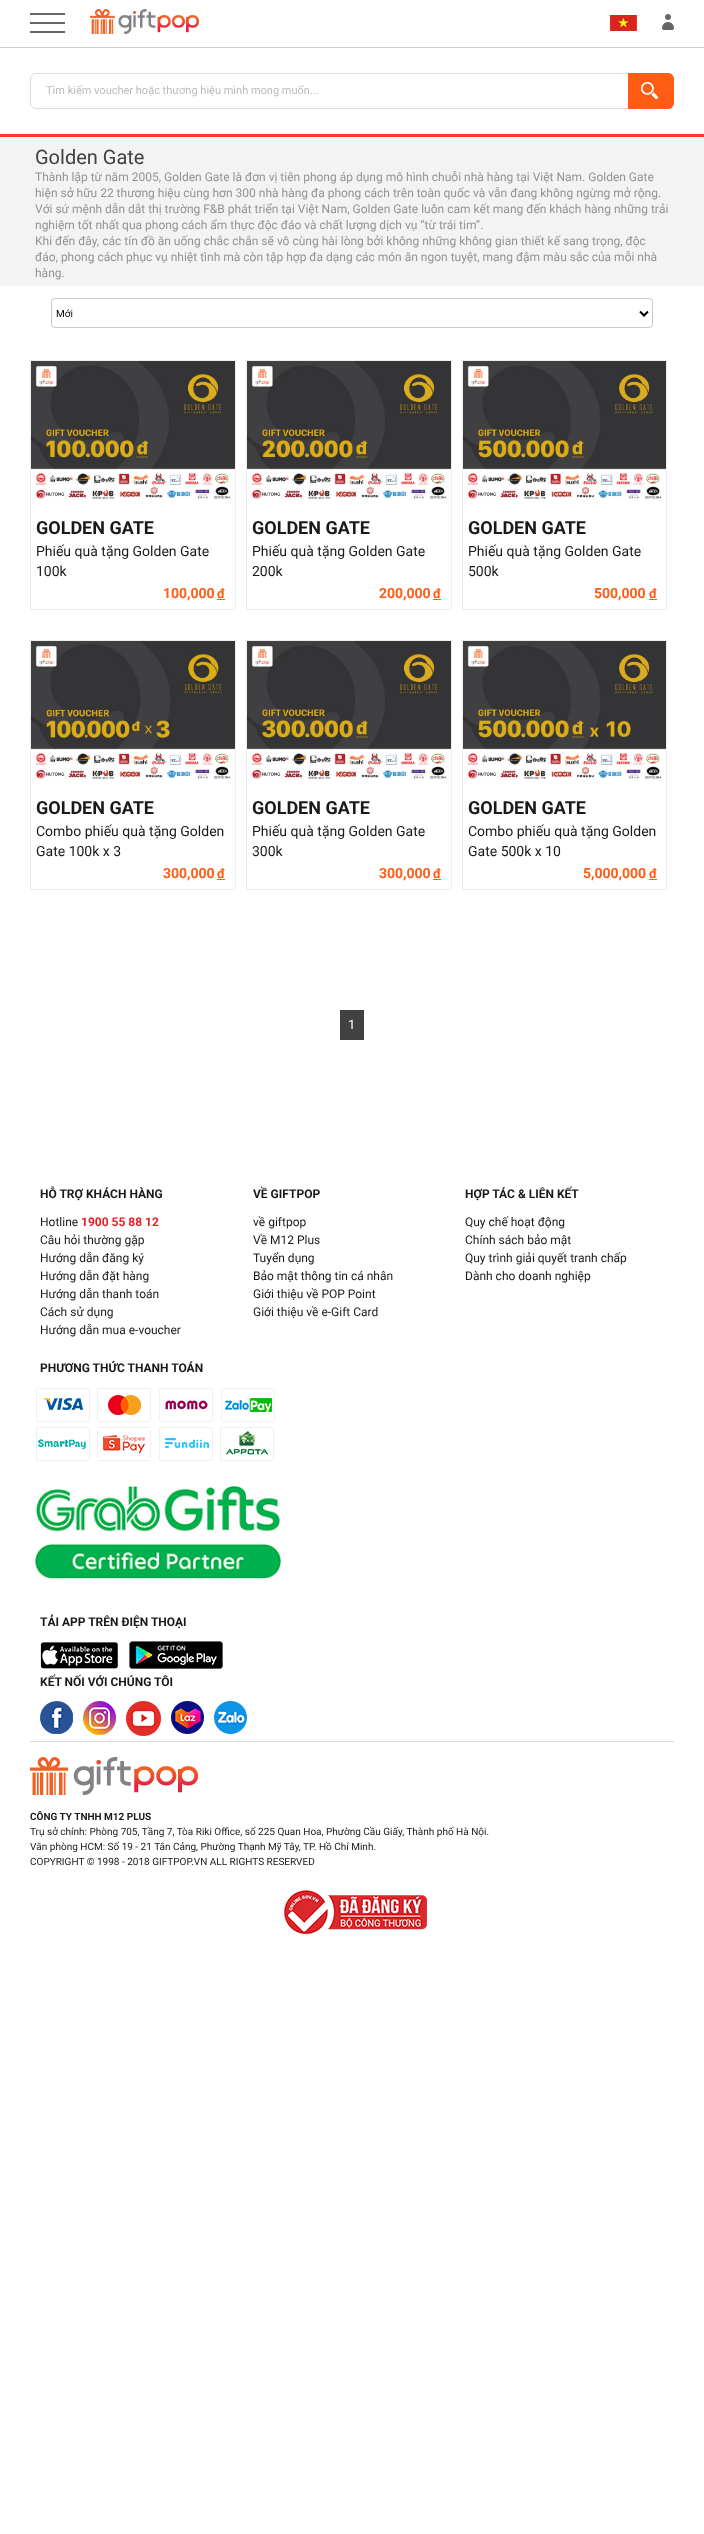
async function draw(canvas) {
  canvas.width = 704;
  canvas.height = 2534;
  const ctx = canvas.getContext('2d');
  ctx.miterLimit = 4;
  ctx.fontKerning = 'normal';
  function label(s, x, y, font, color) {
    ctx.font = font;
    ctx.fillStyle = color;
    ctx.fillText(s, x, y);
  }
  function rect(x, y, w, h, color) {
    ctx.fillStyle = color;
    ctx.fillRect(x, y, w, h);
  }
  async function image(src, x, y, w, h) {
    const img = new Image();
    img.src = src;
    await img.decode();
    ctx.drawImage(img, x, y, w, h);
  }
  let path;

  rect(0, 0, 704, 2534, '#fff');
  rect(30, 13, 35, 2, '#666');
  rect(30, 22, 35, 2, '#666');
  rect(30, 31, 35, 2, '#666');
  await image('assets/img1.png', 90, 9, 109, 25);
  await image('assets/img2.png', 610, 15, 27, 16);
  await image('assets/img3.png', 662, 14, 12, 16);
  rect(0, 47, 704, 1, '#ccc');
  ctx.beginPath();
  ctx.roundRect(30.5, 73.5, 643, 35, 5.5);
  ctx.strokeStyle = '#dcdcdc';
  ctx.stroke();
  label('Tìm kiếm voucher hoặc thương hiệu mình mong muốn...', 46, 94, '11px Roboto', '#bababa');
  ctx.fillStyle = '#ff5d15';
  ctx.beginPath();
  ctx.roundRect(628, 73, 46, 36, [0, 6, 6, 0]);
  ctx.fill();
  await image('assets/img4.png', 641, 82, 17, 17);
  rect(0, 137, 704, 149, '#f3f3f3');
  rect(0, 134, 704, 3, '#f53f25');
  label('Golden Gate', 35, 164, '20px Roboto', '#414042');
  label('Thành lập từ năm 2005, Golden Gate là đơn vị tiên phong áp dụng mô hình chuỗi nhà hàng tại Việt Nam. Golden Gate', 35, 181, '12px Roboto', '#939393');
  label('hiện sở hữu 22 thương hiệu cùng hơn 300 nhà hàng đa phong cách trên toàn quốc và vẫn đang không ngừng mở rộng.', 35, 197, '12px Roboto', '#939393');
  label('Với sứ mệnh dẫn dắt thị trường F&B phát triển tại Việt Nam, Golden Gate luôn cam kết mang đến khách hàng những trải', 35, 213, '12px Roboto', '#939393');
  label('nghiệm tốt nhất qua phong cách ẩm thực độc đáo và chất lượng dịch vụ “từ trái tim”.', 35, 229, '12px Roboto', '#939393');
  label('Khi đến đây, các tín đồ ăn uống chắc chắn sẽ vô cùng hài lòng bởi không những không gian thiết kế sang trọng, độc', 35, 245, '12px Roboto', '#939393');
  label('đáo, phong cách phục vụ nhiệt tình mà còn tập hợp đa dạng các món ăn ngon tuyệt, mang đậm màu sắc của mỗi nhà', 35, 261, '12px Roboto', '#939393');
  label('hàng.', 35, 277, '12px Roboto', '#939393');
  ctx.beginPath();
  ctx.roundRect(51.5, 298.5, 601, 29, 3.5);
  ctx.strokeStyle = '#c9c9c9';
  ctx.stroke();
  path = new Path2D('M640 311.5L644 315.5L648 311.5');
  ctx.strokeStyle = '#000';
  ctx.lineWidth = 2;
  ctx.stroke(path);
  label('Mới', 56, 317, '10px Roboto', '#000');
  ctx.strokeStyle = '#eee';
  ctx.lineWidth = 1;
  ctx.strokeRect(30.5, 360.5, 205, 249);
  await image('assets/img5.png', 31, 361, 204, 139);
  label('GOLDEN GATE', 36, 534, 'bold 18px Roboto', '#191919');
  label('Phiếu quà tặng Golden Gate', 36, 556, '14px Roboto', '#191919');
  label('100k', 36, 576, '14px Roboto', '#191919');
  label('100,000', 163, 598, 'bold 14px Roboto', '#ff5d15');
  label('đ', 217, 598, 'bold 13px Roboto', '#ff5d15');
  rect(217, 599, 8, 1, '#ff5d15');
  ctx.strokeRect(246.5, 360.5, 205, 249);
  await image('assets/img6.png', 247, 361, 204, 139);
  label('GOLDEN GATE', 252, 534, 'bold 18px Roboto', '#191919');
  label('Phiếu quà tặng Golden Gate', 252, 556, '14px Roboto', '#191919');
  label('200k', 252, 576, '14px Roboto', '#191919');
  label('200,000', 379, 598, 'bold 14px Roboto', '#ff5d15');
  label('đ', 433, 598, 'bold 13px Roboto', '#ff5d15');
  rect(433, 599, 8, 1, '#ff5d15');
  ctx.strokeRect(462.5, 360.5, 204, 249);
  await image('assets/img7.png', 463, 361, 203, 139);
  label('GOLDEN GATE', 468, 534, 'bold 18px Roboto', '#191919');
  label('Phiếu quà tặng Golden Gate', 468, 556, '14px Roboto', '#191919');
  label('500k', 468, 576, '14px Roboto', '#191919');
  label('500,000', 594, 598, 'bold 14px Roboto', '#ff5d15');
  label('đ', 649, 598, 'bold 13px Roboto', '#ff5d15');
  rect(649, 599, 8, 1, '#ff5d15');
  ctx.strokeRect(30.5, 640.5, 205, 249);
  await image('assets/img8.png', 31, 641, 204, 139);
  label('GOLDEN GATE', 36, 814, 'bold 18px Roboto', '#191919');
  label('Combo phiếu quà tặng Golden', 36, 836, '14px Roboto', '#191919');
  label('Gate 100k x 3', 36, 856, '14px Roboto', '#191919');
  label('300,000', 163, 878, 'bold 14px Roboto', '#ff5d15');
  label('đ', 217, 878, 'bold 13px Roboto', '#ff5d15');
  rect(217, 879, 8, 1, '#ff5d15');
  ctx.strokeRect(246.5, 640.5, 205, 249);
  await image('assets/img9.png', 247, 641, 204, 139);
  label('GOLDEN GATE', 252, 814, 'bold 18px Roboto', '#191919');
  label('Phiếu quà tặng Golden Gate', 252, 836, '14px Roboto', '#191919');
  label('300k', 252, 856, '14px Roboto', '#191919');
  label('300,000', 379, 878, 'bold 14px Roboto', '#ff5d15');
  label('đ', 433, 878, 'bold 13px Roboto', '#ff5d15');
  rect(433, 879, 8, 1, '#ff5d15');
  ctx.strokeRect(462.5, 640.5, 204, 249);
  await image('assets/img10.png', 463, 641, 203, 139);
  label('GOLDEN GATE', 468, 814, 'bold 18px Roboto', '#191919');
  label('Combo phiếu quà tặng Golden', 468, 836, '14px Roboto', '#191919');
  label('Gate 500k x 10', 468, 856, '14px Roboto', '#191919');
  label('5,000,000', 583, 878, 'bold 14px Roboto', '#ff5d15');
  label('đ', 649, 878, 'bold 13px Roboto', '#ff5d15');
  rect(649, 879, 8, 1, '#ff5d15');
  rect(340, 1010, 24, 30, '#414042');
  label('1', 348, 1029, '13px Roboto', '#fff');
  label('HỖ TRỢ KHÁCH HÀNG', 40, 1198, 'bold 12px Roboto', '#191919');
  label('Hotline', 40, 1226, '12px Roboto', '#191919');
  label('1900 55 88 12', 81, 1226, 'bold 12px Roboto', '#ed1c24');
  label('Câu hỏi thường gặp', 40, 1244, '12px Roboto', '#191919');
  label('Hướng dẫn đăng ký', 40, 1262, '12px Roboto', '#191919');
  label('Hướng dẫn đặt hàng', 40, 1280, '12px Roboto', '#191919');
  label('Hướng dẫn thanh toán', 40, 1298, '12px Roboto', '#191919');
  label('Cách sử dụng', 40, 1316, '12px Roboto', '#191919');
  label('Hướng dẫn mua e-voucher', 40, 1334, '12px Roboto', '#191919');
  label('VỀ GIFTPOP', 253, 1198, 'bold 12px Roboto', '#191919');
  label('về giftpop', 253, 1226, '12px Roboto', '#191919');
  label('Về M12 Plus', 253, 1244, '12px Roboto', '#191919');
  label('Tuyển dụng', 253, 1262, '12px Roboto', '#191919');
  label('Bảo mật thông tin cá nhân', 253, 1280, '12px Roboto', '#191919');
  label('Giới thiệu về POP Point', 253, 1298, '12px Roboto', '#191919');
  label('Giới thiệu về e-Gift Card', 253, 1316, '12px Roboto', '#191919');
  label('HỢP TÁC & LIÊN KẾT', 465, 1198, 'bold 12px Roboto', '#191919');
  label('Quy chế hoạt động', 465, 1226, '12px Roboto', '#191919');
  label('Chính sách bảo mật', 465, 1244, '12px Roboto', '#191919');
  label('Quy trình giải quyết tranh chấp', 465, 1262, '12px Roboto', '#191919');
  label('Dành cho doanh nghiệp', 465, 1280, '12px Roboto', '#191919');
  label('PHƯƠNG THỨC THANH TOÁN', 40, 1372, 'bold 12px Roboto', '#191919');
  await image('assets/img11.png', 36, 1388, 54, 34);
  await image('assets/img12.png', 97, 1388, 54, 34);
  await image('assets/img13.png', 159, 1388, 54, 34);
  await image('assets/img14.png', 221, 1388, 54, 34);
  await image('assets/img15.png', 36, 1427, 54, 34);
  await image('assets/img16.png', 97, 1427, 54, 34);
  await image('assets/img17.png', 159, 1427, 54, 34);
  await image('assets/img18.png', 220, 1427, 54, 34);
  await image('assets/img19.png', 35, 1486, 246, 93);
  label('TẢI APP TRÊN ĐIỆN THOẠI', 40, 1626, 'bold 12px Roboto', '#191919');
  await image('assets/img20.png', 40, 1642, 78, 27);
  await image('assets/img21.png', 129, 1641, 94, 28);
  label('KẾT NỐI VỚI CHÚNG TÔI', 40, 1686, 'bold 12px Roboto', '#191919');
  await image('assets/img22.png', 40, 1701, 33, 33);
  await image('assets/img23.png', 83, 1701, 33, 34);
  await image('assets/img24.png', 126, 1701, 35, 35);
  await image('assets/img25.png', 171, 1701, 33, 33);
  await image('assets/img26.png', 214, 1701, 33, 33);
  rect(30, 1741, 644, 1, '#dcdcdc');
  await image('assets/img27.png', 30, 1757, 168, 38);
  label('CÔNG TY TNHH M12 PLUS', 30, 1820, 'bold 10px Roboto', '#191919');
  label('Trụ sở chính: Phòng 705, Tầng 7, Tòa Riki Office, số 225 Quan Hoa, Phường Cầu Giấy, Thành phố Hà Nội.', 30, 1835, '10px Roboto', '#191919');
  label('Văn phòng HCM: Số 19 - 21 Tân Cảng, Phường Thạnh Mỹ Tây, TP. Hồ Chí Minh.', 30, 1850, '10px Roboto', '#191919');
  label('COPYRIGHT © 1998 - 2018 GIFTPOP.VN ALL RIGHTS RESERVED', 30, 1865, '10px Roboto', '#191919');
  await image('assets/img28.png', 284, 1890, 143, 45);
}

draw(document.querySelector('canvas'));
